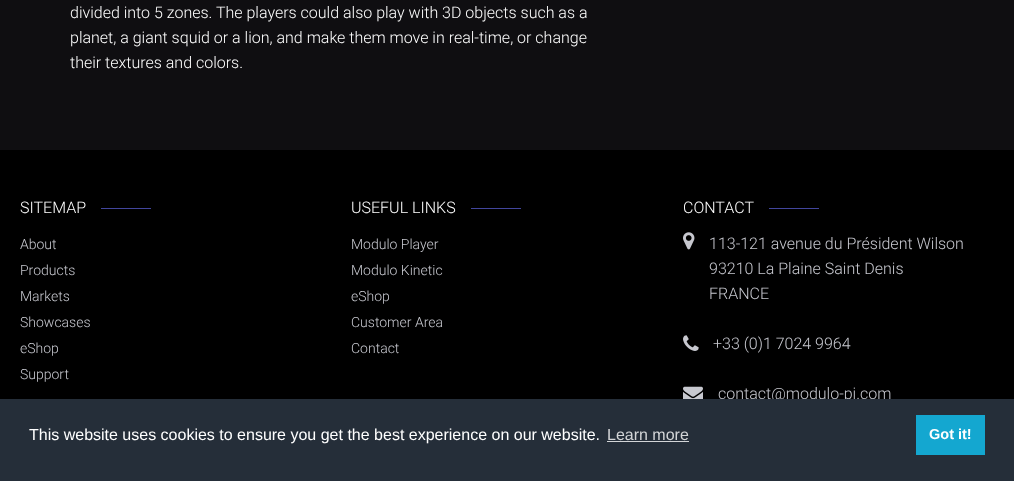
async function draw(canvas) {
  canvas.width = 1014;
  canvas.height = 481;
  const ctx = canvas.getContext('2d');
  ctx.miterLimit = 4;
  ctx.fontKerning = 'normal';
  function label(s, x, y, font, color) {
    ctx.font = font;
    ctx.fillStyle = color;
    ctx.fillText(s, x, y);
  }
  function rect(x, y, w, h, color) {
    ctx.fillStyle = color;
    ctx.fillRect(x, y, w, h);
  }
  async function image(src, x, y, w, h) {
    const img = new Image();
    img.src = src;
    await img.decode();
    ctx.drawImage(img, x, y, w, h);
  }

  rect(0, 0, 1014, 481, '#0f0e11');
  label('divided into 5 zones. The players could also play with 3D objects such as a', 70, 18, '300 16px Roboto', '#fff');
  label('planet, a giant squid or a lion, and make them move in real-time, or change', 70, 43, '300 16px Roboto', '#fff');
  label('their textures and colors.', 70, 68, '300 16px Roboto', '#fff');
  rect(0, 150, 1014, 249, '#000');
  label('SITEMAP', 20, 213, '300 16px Roboto', '#fff');
  rect(101, 208, 50, 1, '#42469d');
  label('About', 20, 249, '300 14px Roboto', '#c7c8cf');
  label('Products', 20, 275, '300 14px Roboto', '#c7c8cf');
  label('Markets', 20, 301, '300 14px Roboto', '#c7c8cf');
  label('Showcases', 20, 327, '300 14px Roboto', '#c7c8cf');
  label('eShop', 20, 353, '300 14px Roboto', '#c7c8cf');
  label('Support', 20, 379, '300 14px Roboto', '#c7c8cf');
  label('USEFUL LINKS', 351, 213, '300 16px Roboto', '#fff');
  rect(471, 208, 50, 1, '#42469d');
  label('Modulo Player', 351, 249, '300 14px Roboto', '#c7c8cf');
  label('Modulo Kinetic', 351, 275, '300 14px Roboto', '#c7c8cf');
  label('eShop', 351, 301, '300 14px Roboto', '#c7c8cf');
  label('Customer Area', 351, 327, '300 14px Roboto', '#c7c8cf');
  label('Contact', 351, 353, '300 14px Roboto', '#c7c8cf');
  label('CONTACT', 683, 213, '300 16px Roboto', '#fff');
  rect(769, 208, 50, 1, '#42469d');
  await image('assets/img1.png', 683, 232, 12, 18);
  label('113-121 avenue du Président Wilson', 709, 249, '300 16px Roboto', '#c7c8cf');
  label('93210 La Plaine Saint Denis', 709, 274, '300 16px Roboto', '#c7c8cf');
  label('FRANCE', 709, 299, '300 16px Roboto', '#c7c8cf');
  await image('assets/img2.png', 683, 335, 16, 16);
  label('+33 (0)1 7024 9964', 713, 349, '300 16px Roboto', '#c7c8cf');
  await image('assets/img3.png', 683, 386, 20, 13);
  label('contact@modulo-pi.com', 718, 399, '300 16px Roboto', '#c7c8cf');
  rect(0, 399, 1014, 82, '#252e39');
  label('This website uses cookies to ensure you get the best experience on our website.', 29, 440, '16px Liberation Sans', '#fff');
  label('Learn more', 607, 440, '16px Liberation Sans', '#d3d5d7');
  rect(607, 441, 82, 1, '#d3d5d7');
  rect(916, 415, 69, 40, '#14a7d0');
  label('Got it!', 929, 439, 'bold 14.5px Liberation Sans', '#fff');
}

draw(document.querySelector('canvas'));
